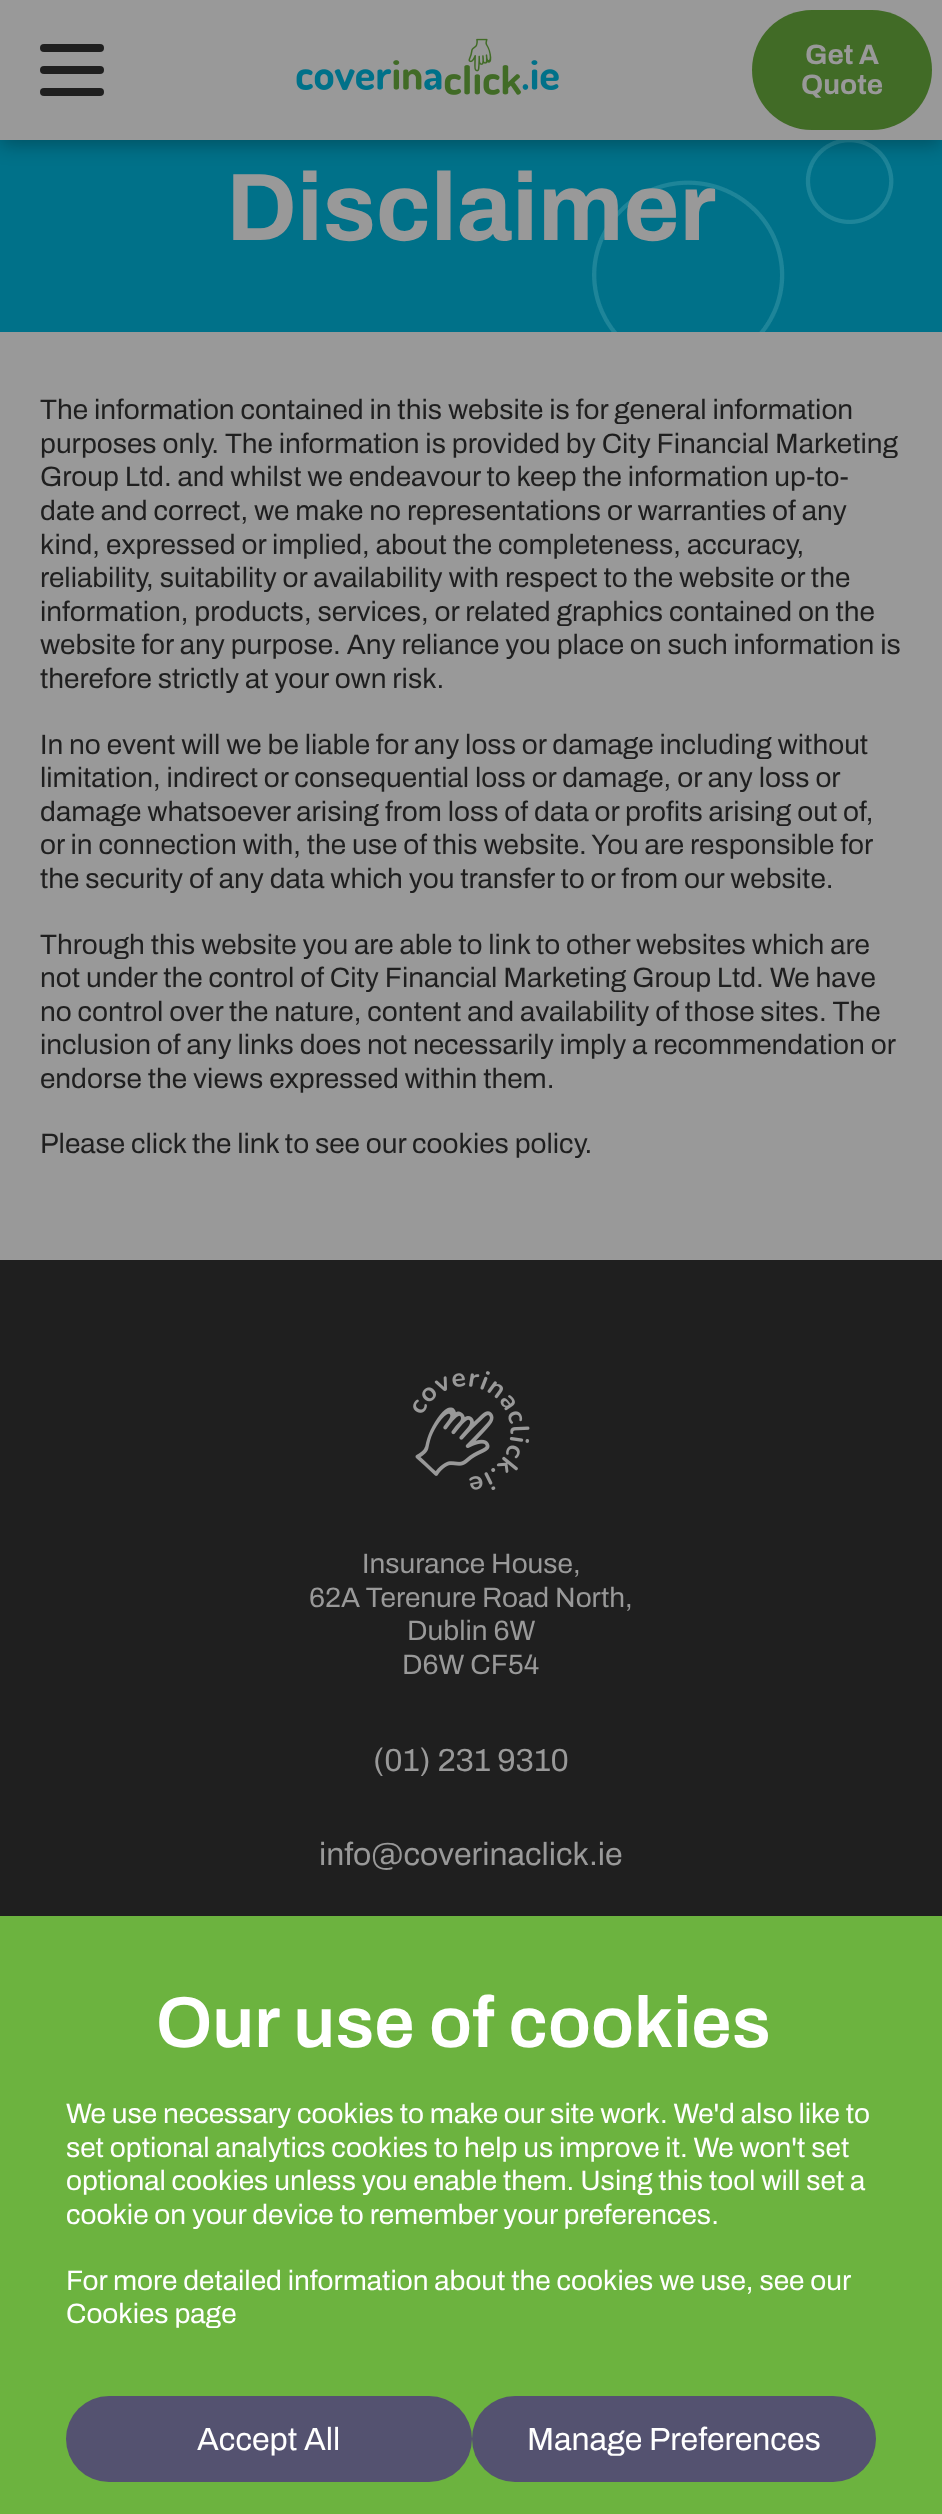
async function draw(canvas) {
  canvas.width = 942;
  canvas.height = 2514;
  const ctx = canvas.getContext('2d');
  ctx.miterLimit = 4;
  ctx.fontKerning = 'normal';
  function label(s, x, y, font, color) {
    ctx.font = font;
    ctx.fillStyle = color;
    ctx.fillText(s, x, y);
  }
  function rect(x, y, w, h, color) {
    ctx.fillStyle = color;
    ctx.fillRect(x, y, w, h);
  }
  function roundedRect(x, y, w, h, r, color) {
    ctx.fillStyle = color;
    ctx.beginPath();
    ctx.roundRect(x, y, w, h, r);
    ctx.fill();
  }
  async function image(src, x, y, w, h) {
    const img = new Image();
    img.src = src;
    await img.decode();
    ctx.drawImage(img, x, y, w, h);
  }

  rect(0, 0, 942, 2514, '#999');
  rect(0, 140, 942, 192, '#007189');
  await image('assets/img2.png', 592, 140, 302, 192);
  ctx.fillStyle = '#0000004d';
  ctx.filter = 'blur(10px)';
  ctx.beginPath();
  ctx.rect(0, 4, 942, 140);
  ctx.fill();
  ctx.filter = 'none';
  rect(0, 0, 942, 140, '#999');
  roundedRect(40, 44, 64, 8, 4, '#1f1f1f');
  roundedRect(40, 66, 64, 8, 4, '#1f1f1f');
  roundedRect(40, 88, 64, 8, 4, '#1f1f1f');
  await image('assets/img1.png', 296, 38, 263, 57);
  roundedRect(752, 10, 180, 120, 60, '#416b26');
  label('Get A', 805, 64, 'bold 28px Archivo', '#999');
  label('Quote', 801, 94, 'bold 28px Archivo', '#999');
  label('Disclaimer', 226, 240, 'bold 96px Archivo', '#999');
  label('The information contained in this website is for general information', 40, 419, '28px Archivo', '#1f1f1f');
  label('purposes only. The information is provided by City Financial Marketing', 40, 453, '28px Archivo', '#1f1f1f');
  label('Group Ltd. and whilst we endeavour to keep the information up-to-', 40, 486, '28px Archivo', '#1f1f1f');
  label('date and correct, we make no representations or warranties of any', 40, 520, '28px Archivo', '#1f1f1f');
  label('kind, expressed or implied, about the completeness, accuracy,', 40, 554, '28px Archivo', '#1f1f1f');
  label('reliability, suitability or availability with respect to the website or the', 40, 587, '28px Archivo', '#1f1f1f');
  label('information, products, services, or related graphics contained on the', 40, 621, '28px Archivo', '#1f1f1f');
  label('website for any purpose. Any reliance you place on such information is', 40, 654, '28px Archivo', '#1f1f1f');
  label('therefore strictly at your own risk.', 40, 688, '28px Archivo', '#1f1f1f');
  label('In no event will we be liable for any loss or damage including without', 40, 754, '28px Archivo', '#1f1f1f');
  label('limitation, indirect or consequential loss or damage, or any loss or', 40, 787, '28px Archivo', '#1f1f1f');
  label('damage whatsoever arising from loss of data or profits arising out of,', 40, 821, '28px Archivo', '#1f1f1f');
  label('or in connection with, the use of this website. You are responsible for', 40, 854, '28px Archivo', '#1f1f1f');
  label('the security of any data which you transfer to or from our website.', 40, 888, '28px Archivo', '#1f1f1f');
  label('Through this website you are able to link to other websites which are', 40, 954, '28px Archivo', '#1f1f1f');
  label('not under the control of City Financial Marketing Group Ltd. We have', 40, 987, '28px Archivo', '#1f1f1f');
  label('no control over the nature, content and availability of those sites. The', 40, 1021, '28px Archivo', '#1f1f1f');
  label('inclusion of any links does not necessarily imply a recommendation or', 40, 1054, '28px Archivo', '#1f1f1f');
  label('endorse the views expressed within them.', 40, 1088, '28px Archivo', '#1f1f1f');
  label('Please click the link to see our cookies policy.', 40, 1153, '28px Archivo', '#1f1f1f');
  rect(0, 1260, 942, 656, '#1f1f1f');
  await image('assets/img3.png', 413, 1371, 117, 119);
  label('Insurance House,', 362, 1573, '28px Archivo', '#999');
  label('62A Terenure Road North,', 309, 1607, '28px Archivo', '#999');
  label('Dublin 6W', 407, 1640, '28px Archivo', '#999');
  label('D6W CF54', 402, 1674, '28px Archivo', '#999');
  label('(01) 231 9310', 373, 1771, '32px Archivo', '#999');
  label('info@coverinaclick.ie', 319, 1865, '32px Archivo', '#999');
  rect(0, 1916, 942, 598, '#6cb33f');
  label('Our use of cookies', 156, 2047, '600 72px Archivo', '#fff');
  label('We use necessary cookies to make our site work. We\'d also like to', 66, 2123, '28px Archivo', '#fff');
  label('set optional analytics cookies to help us improve it. We won\'t set', 66, 2157, '28px Archivo', '#fff');
  label('optional cookies unless you enable them. Using this tool will set a', 66, 2190, '28px Archivo', '#fff');
  label('cookie on your device to remember your preferences.', 66, 2224, '28px Archivo', '#fff');
  label('For more detailed information about the cookies we use, see our', 66, 2290, '28px Archivo', '#fff');
  label('Cookies page', 66, 2323, '28px Archivo', '#fff');
  roundedRect(66, 2396, 406, 86, 43, '#545270');
  label('Accept All', 197, 2450, '32px Archivo', '#fff');
  roundedRect(472, 2396, 404, 86, 43, '#545270');
  label('Manage Preferences', 527, 2450, '32px Archivo', '#fff');
}

draw(document.querySelector('canvas'));
